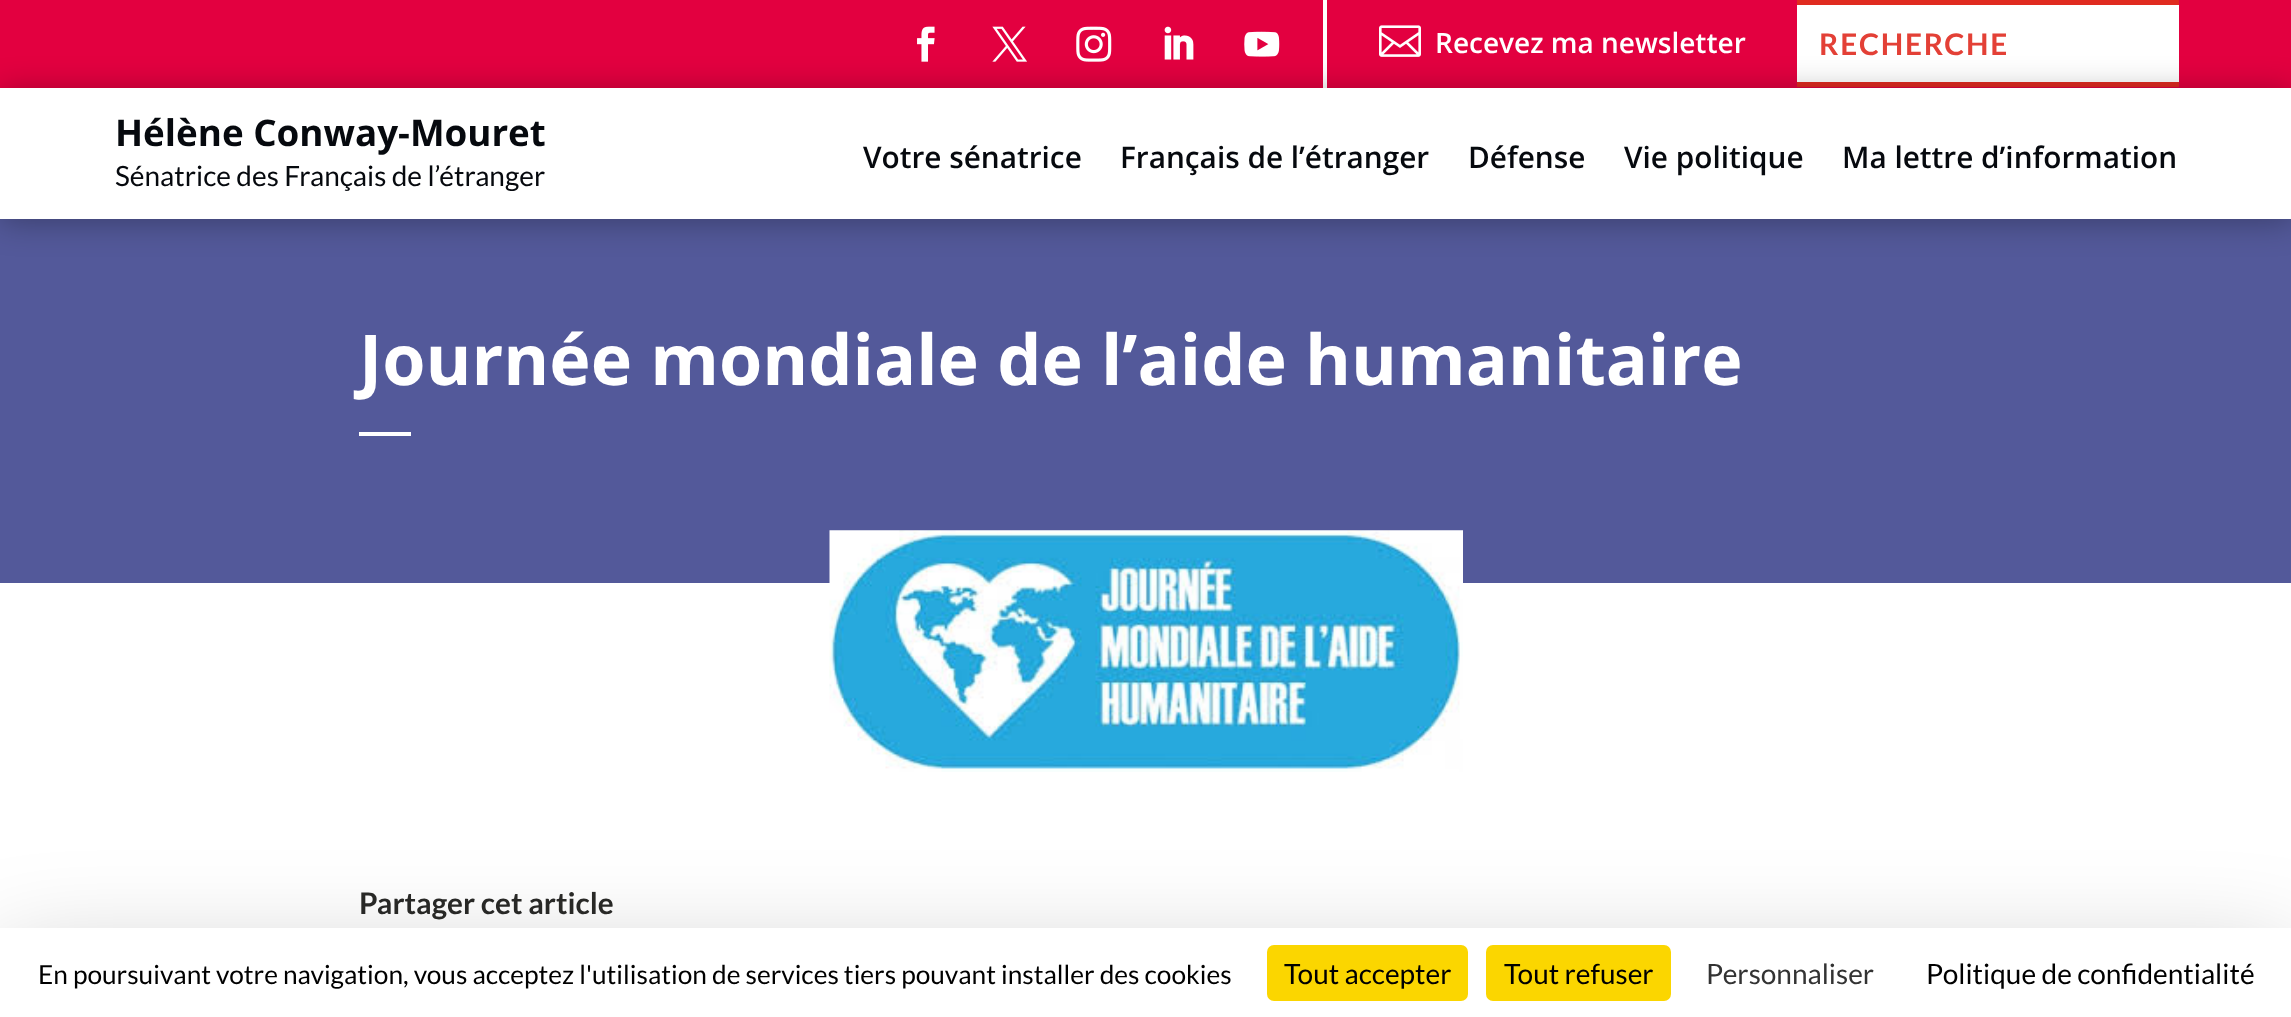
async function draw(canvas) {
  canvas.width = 2291;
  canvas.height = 1017;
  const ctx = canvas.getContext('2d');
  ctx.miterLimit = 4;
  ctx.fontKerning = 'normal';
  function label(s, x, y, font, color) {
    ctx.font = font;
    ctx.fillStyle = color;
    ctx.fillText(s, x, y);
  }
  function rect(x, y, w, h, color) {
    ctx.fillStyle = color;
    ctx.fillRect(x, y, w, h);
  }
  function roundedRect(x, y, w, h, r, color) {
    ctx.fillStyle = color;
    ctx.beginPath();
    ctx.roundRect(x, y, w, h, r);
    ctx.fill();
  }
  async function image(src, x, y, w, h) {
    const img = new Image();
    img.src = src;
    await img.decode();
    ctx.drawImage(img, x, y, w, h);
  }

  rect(0, 0, 2291, 1017, '#53599a');
  rect(0, 0, 2291, 88, '#e30040');
  await image('assets/img1.png', 917, 26, 18, 36);
  await image('assets/img2.png', 992, 26, 35, 36);
  await image('assets/img3.png', 1076, 26, 36, 36);
  await image('assets/img4.png', 1164, 26, 30, 34);
  await image('assets/img5.png', 1244, 31, 36, 26);
  rect(1323, 0, 4, 88, '#fff');
  await image('assets/img6.png', 1379, 25, 42, 32);
  label('Recevez ma newsletter', 1435, 53, '600 28px Open Sans', '#fff');
  rect(1797, 0, 382, 5, '#e02b20');
  rect(1797, 82, 382, 5, '#e02b20');
  rect(1797, 5, 382, 77, '#fff');
  ctx.letterSpacing = '1.75px';
  label('RECHERCHE', 1819, 55, 'bold 29.75px Lato', '#e34036');
  ctx.fillStyle = '#0000004d';
  ctx.filter = 'blur(16px)';
  ctx.beginPath();
  ctx.rect(0, 91, 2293, 131);
  ctx.fill();
  ctx.filter = 'none';
  rect(0, 88, 2291, 131, '#fff');
  ctx.letterSpacing = '0px';
  label('Hélène Conway-Mouret', 115, 146, 'bold 36.75px Open Sans', '#06090e');
  label('Sénatrice des Français de l’étranger', 115, 186, '28px Lato', '#06090e');
  label('Votre sénatrice', 863, 168, '600 29.75px Open Sans', '#06090e');
  label('Français de l’étranger', 1120, 168, '600 29.75px Open Sans', '#06090e');
  label('Défense', 1468, 168, '600 29.75px Open Sans', '#06090e');
  label('Vie politique', 1624, 168, '600 29.75px Open Sans', '#06090e');
  label('Ma lettre d’information', 1842, 168, '600 29.75px Open Sans', '#06090e');
  label('Journée mondiale de l’aide humanitaire', 359, 385, 'bold 70px Open Sans', '#fff');
  rect(359, 432, 52, 4, '#fff');
  rect(0, 583, 2291, 345, '#fff');
  await image('assets/img7.png', 829, 530, 634, 242);
  label('Partager cet article', 359, 914, 'bold 29.75px Lato', '#2a2a28');
  ctx.fillStyle = '#00000040';
  ctx.filter = 'blur(52.5px)';
  ctx.beginPath();
  ctx.rect(0, 963, 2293, 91);
  ctx.fill();
  ctx.filter = 'none';
  rect(0, 928, 2291, 89, '#fff');
  label('En poursuivant votre navigation, vous acceptez l\'utilisation de services tiers pouvant installer des cookies', 38, 984, '26.25px Lato', '#000');
  roundedRect(1267, 945, 201, 56, 7, '#fbd600');
  label('Tout accepter', 1284, 984, '28px Lato', '#000');
  roundedRect(1486, 945, 185, 56, 7, '#fbd600');
  label('Tout refuser', 1504, 984, '28px Lato', '#000');
  label('Personnaliser', 1706, 984, '28px Lato', '#333');
  label('Politique de confidentialité', 1926, 984, '28px Lato', '#000');
}

draw(document.querySelector('canvas'));
